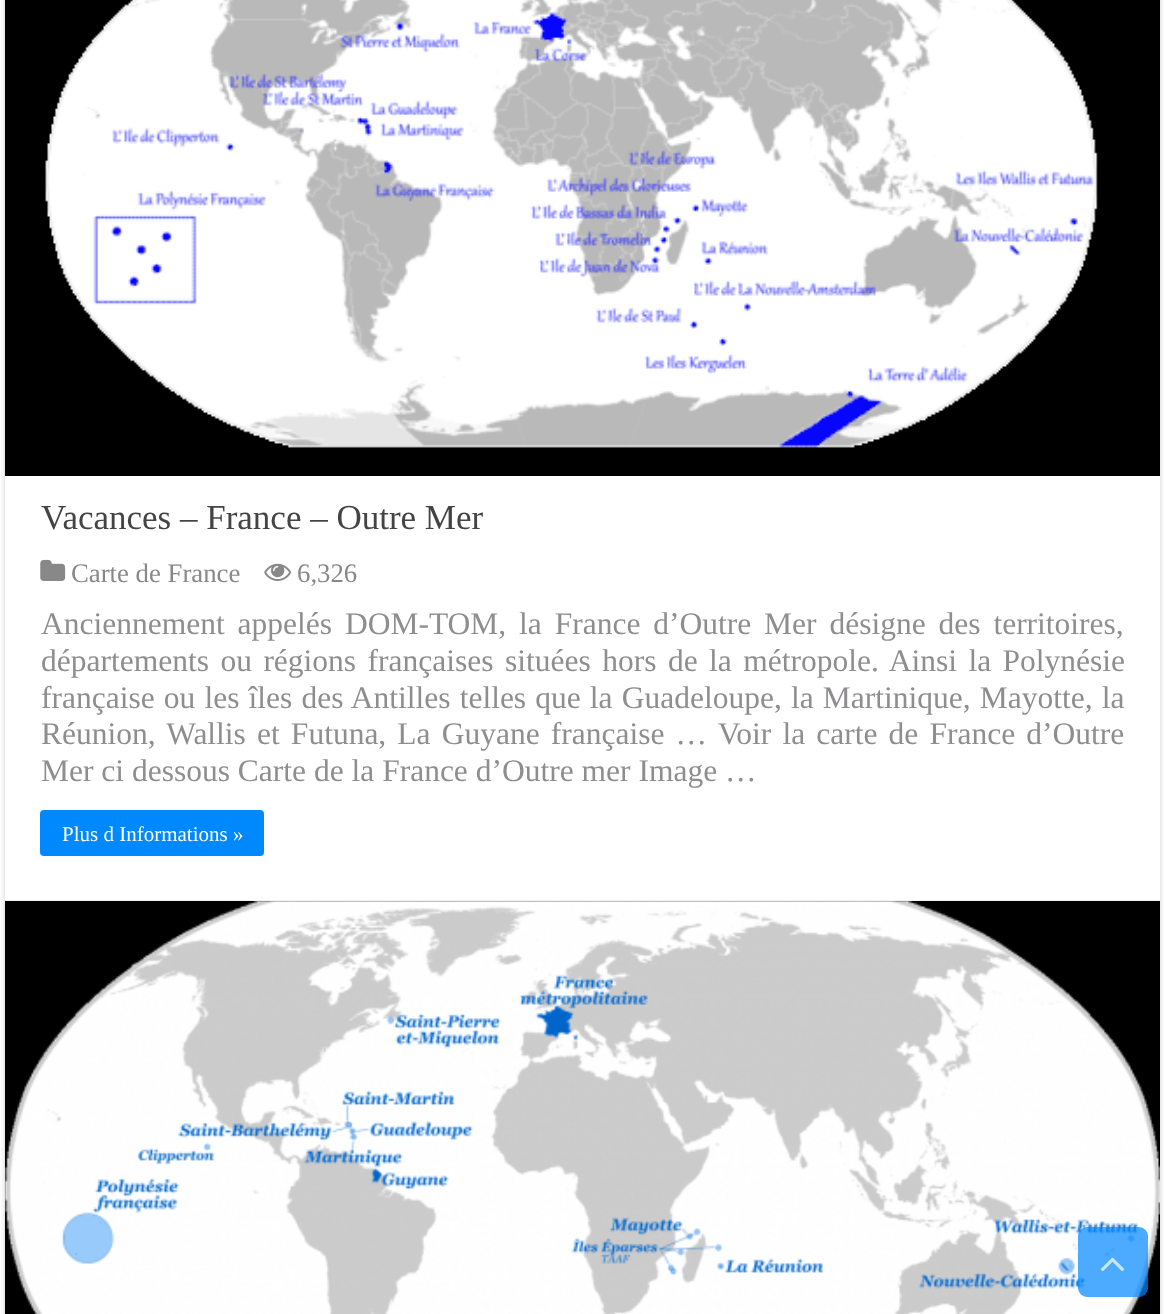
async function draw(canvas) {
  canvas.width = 1164;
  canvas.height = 1314;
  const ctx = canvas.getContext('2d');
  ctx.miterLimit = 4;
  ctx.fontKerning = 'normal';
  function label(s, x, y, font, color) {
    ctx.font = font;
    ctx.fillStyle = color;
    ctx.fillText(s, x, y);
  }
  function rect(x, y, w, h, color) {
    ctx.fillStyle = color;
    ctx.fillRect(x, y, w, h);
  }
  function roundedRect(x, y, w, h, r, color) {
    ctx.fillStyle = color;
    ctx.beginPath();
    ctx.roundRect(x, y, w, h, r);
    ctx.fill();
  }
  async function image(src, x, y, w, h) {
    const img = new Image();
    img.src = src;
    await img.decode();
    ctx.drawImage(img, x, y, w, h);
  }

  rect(0, 0, 1164, 1314, '#fff');
  ctx.fillStyle = '#cacaca';
  ctx.filter = 'blur(2.5px)';
  ctx.beginPath();
  ctx.rect(5, -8, 1155, 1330);
  ctx.fill();
  ctx.filter = 'none';
  rect(5, 476, 1155, 424, '#fff');
  rect(5, 900, 1155, 1, '#f2f2f2');
  rect(5, 0, 1155, 476, '#000');
  await image('assets/img1.png', 45, 0, 1053, 448);
  label('Vacances – France – Outre Mer', 41, 529, '35px Liberation Serif', '#444');
  await image('assets/img2.png', 40, 559, 26, 22);
  label('Carte de France', 71, 582, '26.75px Liberation Serif', '#888');
  await image('assets/img3.png', 264, 563, 27, 18);
  label('6,326', 297, 582, '26.75px Liberation Serif', '#888');
  ctx.wordSpacing = '5px';
  label('Anciennement appelés DOM-TOM, la France d’Outre Mer désigne des territoires,', 41, 634, '31.5px Liberation Serif', '#8f8d8f');
  ctx.wordSpacing = '3.6px';
  label('départements ou régions françaises situées hors de la métropole. Ainsi la Polynésie', 41, 671, '31.5px Liberation Serif', '#8f8d8f');
  ctx.wordSpacing = '1.25px';
  label('française ou les îles des Antilles telles que la Guadeloupe, la Martinique, Mayotte, la', 41, 708, '31.5px Liberation Serif', '#8f8d8f');
  ctx.wordSpacing = '3.25px';
  label('Réunion, Wallis et Futuna, La Guyane française … Voir la carte de France d’Outre', 41, 744, '31.5px Liberation Serif', '#8f8d8f');
  ctx.wordSpacing = '0px';
  label('Mer ci dessous Carte de la France d’Outre mer Image …', 41, 781, '31.5px Liberation Serif', '#8f8d8f');
  roundedRect(40, 810, 224, 46, 4, '#08f');
  label('Plus d Informations »', 62, 841, '21px Liberation Serif', '#fff');
  rect(5, 901, 1155, 413, '#000');
  await image('assets/img4.png', 5, 901, 1155, 413);
  roundedRect(1078, 1227, 70, 70, 9, '#0088ffb3');
  await image('assets/img5.png', 1100, 1257, 25, 15);
}

draw(document.querySelector('canvas'));
